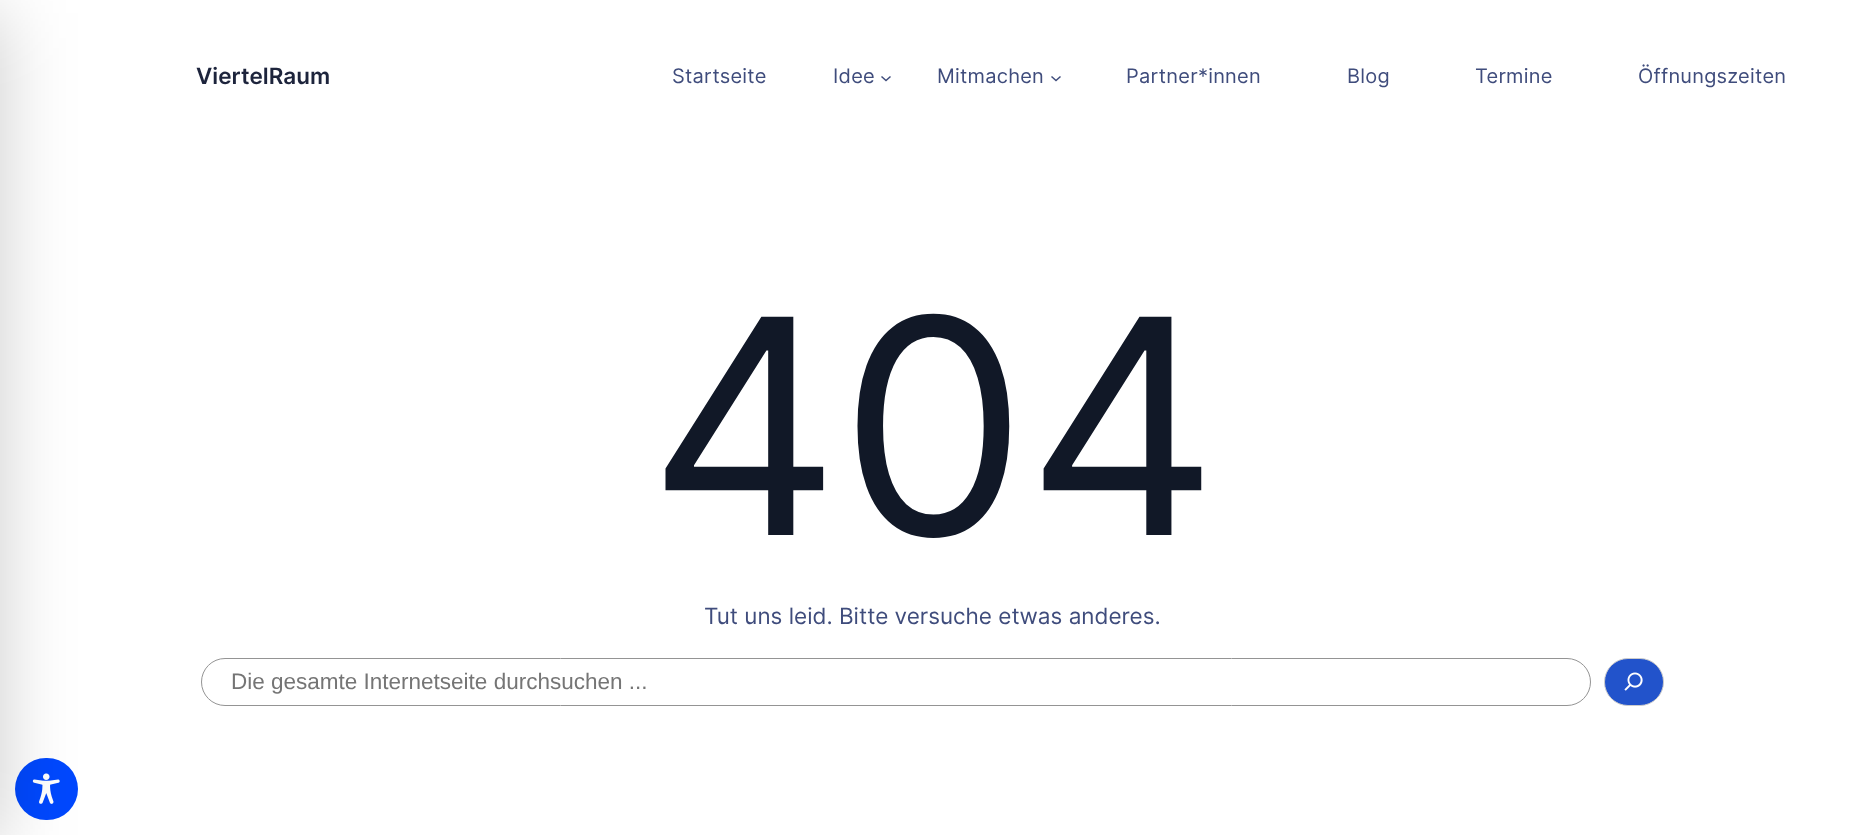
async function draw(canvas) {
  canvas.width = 1865;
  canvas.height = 835;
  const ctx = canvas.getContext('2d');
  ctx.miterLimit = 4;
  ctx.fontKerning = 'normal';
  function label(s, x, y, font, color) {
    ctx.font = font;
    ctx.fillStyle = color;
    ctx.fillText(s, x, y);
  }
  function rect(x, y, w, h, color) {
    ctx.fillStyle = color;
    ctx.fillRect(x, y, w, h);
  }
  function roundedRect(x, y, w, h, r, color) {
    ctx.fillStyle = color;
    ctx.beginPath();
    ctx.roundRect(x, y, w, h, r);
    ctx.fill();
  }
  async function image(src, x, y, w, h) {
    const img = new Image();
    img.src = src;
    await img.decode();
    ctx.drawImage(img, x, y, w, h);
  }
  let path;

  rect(0, 0, 1865, 835, '#fff');
  roundedRect(15, 758, 63, 62, 31, '#0048fe');
  await image('assets/img2.png', 32, 773, 28, 31);
  ctx.fillStyle = '#00000033';
  ctx.filter = 'blur(37.5px)';
  ctx.beginPath();
  ctx.rect(-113, 13, 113, 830);
  ctx.fill();
  ctx.filter = 'none';
  label('ViertelRaum', 196, 84, '600 22.5px Inter', '#1d243c');
  ctx.letterSpacing = '0.25px';
  label('Startseite', 672, 83, '20px Inter', '#3f4c7c');
  label('Idee', 833, 83, '20px Inter', '#3f4c7c');
  path = new Path2D('M881.5 76.5L886 80.5L890.5 76.5');
  ctx.strokeStyle = '#3f4c7c';
  ctx.lineWidth = 1.5;
  ctx.stroke(path);
  label('Mitmachen', 937, 83, '20px Inter', '#3f4c7c');
  path = new Path2D('M1051.5 76.5L1056 80.5L1060.5 76.5');
  ctx.stroke(path);
  label('Partner*innen', 1126, 83, '20px Inter', '#3f4c7c');
  label('Blog', 1347, 83, '20px Inter', '#3f4c7c');
  label('Termine', 1475, 83, '20px Inter', '#3f4c7c');
  label('Öffnungszeiten', 1638, 83, '20px Inter', '#3f4c7c');
  ctx.letterSpacing = '-1px';
  label('404', 648, 535, '300px Inter', '#111827');
  ctx.letterSpacing = '0px';
  label('Tut uns leid. Bitte versuche etwas anderes.', 704, 624, '22.5px Inter', '#3f4c7c');
  ctx.beginPath();
  ctx.roundRect(201.5, 658.5, 1389, 47, 23.5);
  ctx.strokeStyle = '#949494';
  ctx.lineWidth = 1;
  ctx.stroke();
  label('Die gesamte Internetseite durchsuchen ...', 231, 689, '22.5px Liberation Sans', '#757575');
  ctx.fillStyle = '#2253cb';
  ctx.beginPath();
  ctx.roundRect(1604.5, 658.5, 59, 47, 23.5);
  ctx.fill();
  ctx.strokeStyle = '#ccc';
  ctx.stroke();
  await image('assets/img1.png', 1624, 672, 19, 19);
}

draw(document.querySelector('canvas'));
